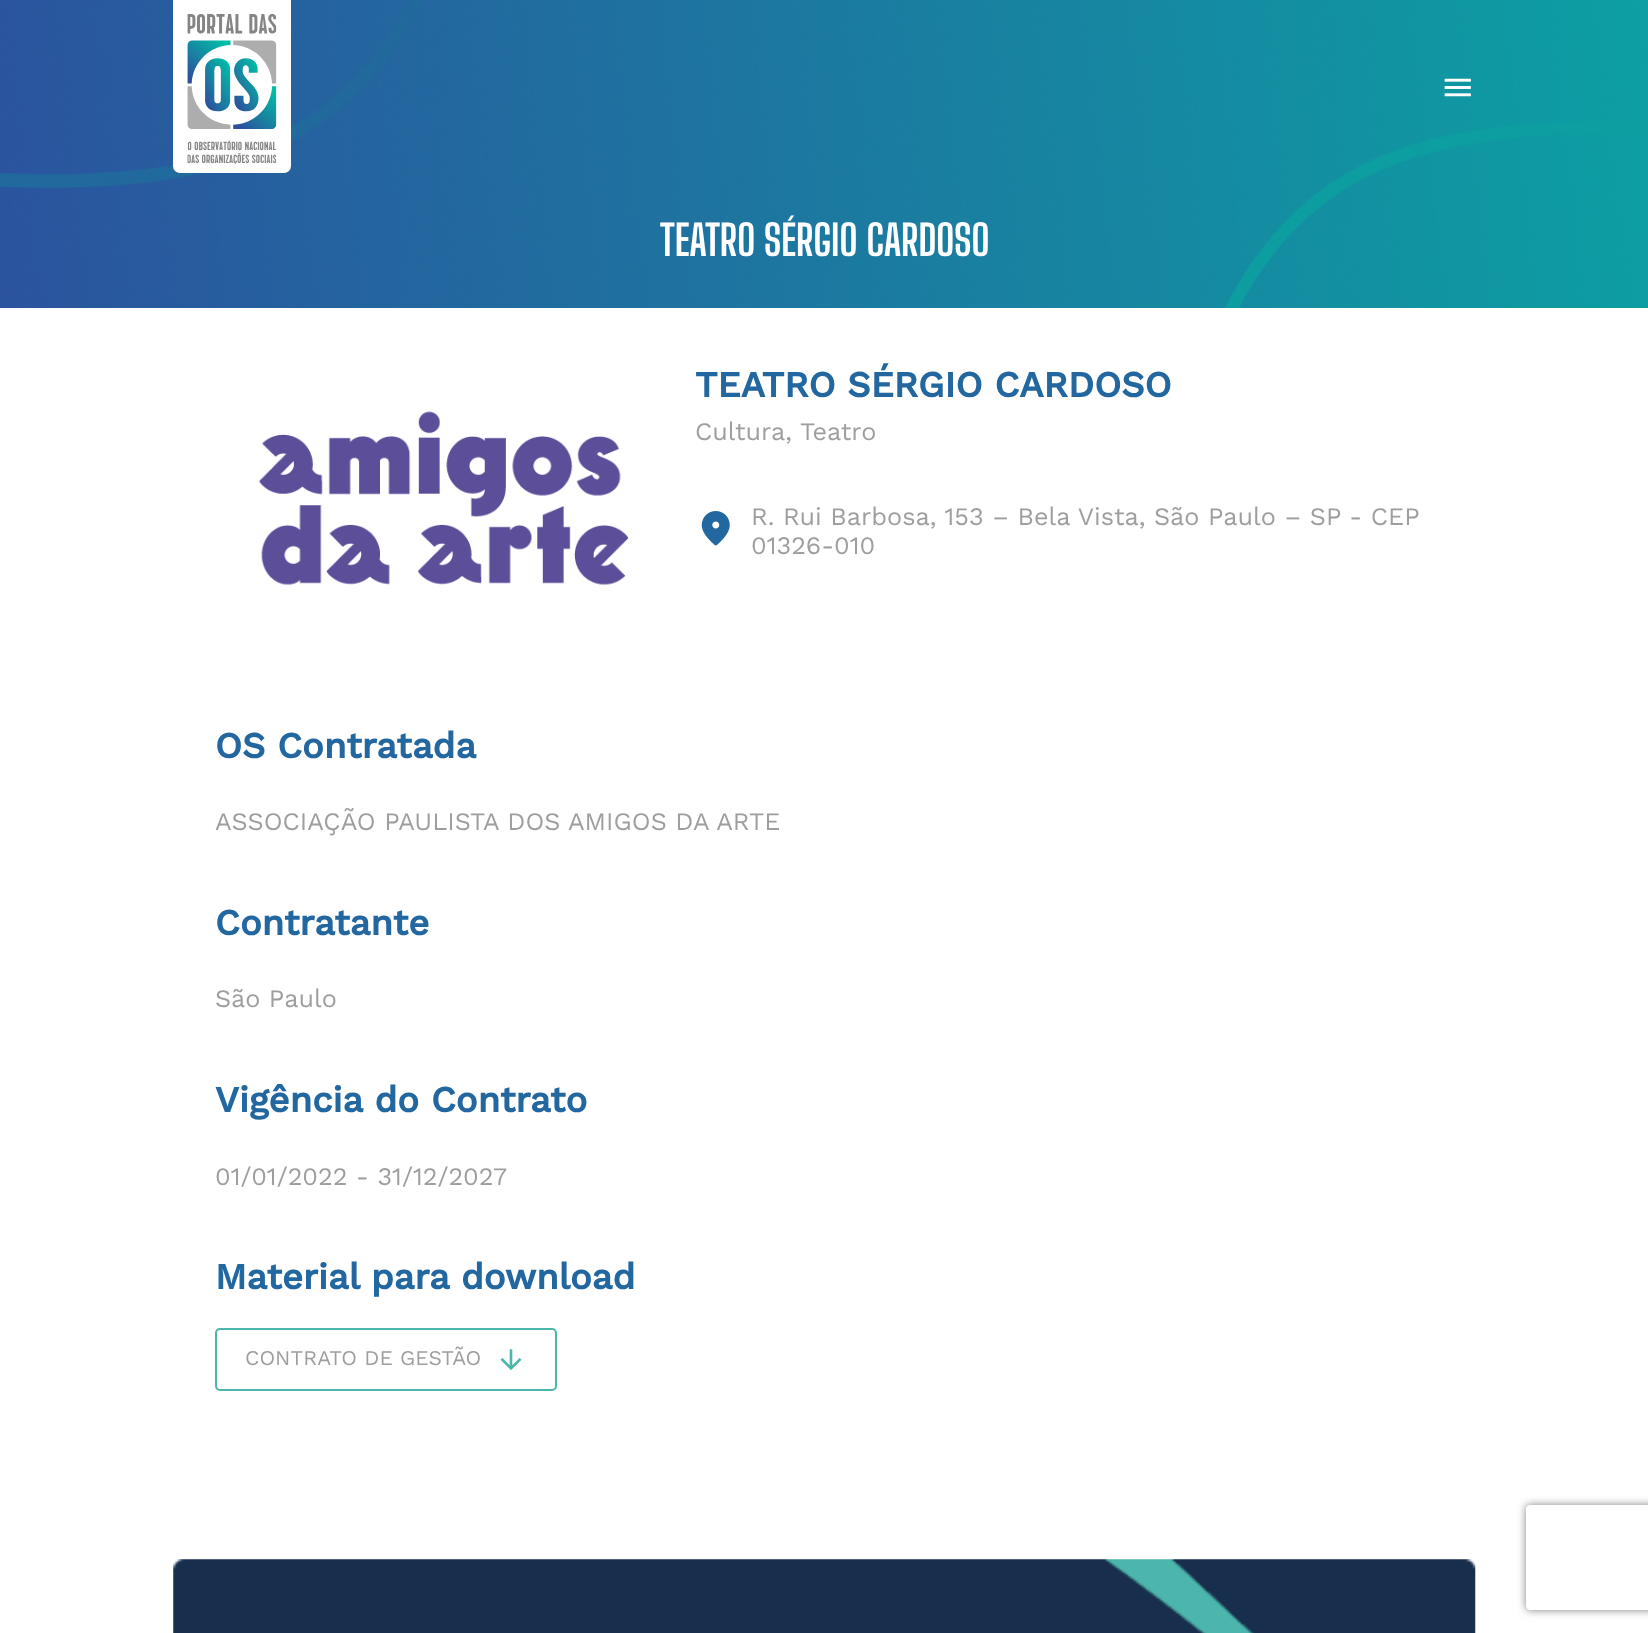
async function draw(canvas) {
  canvas.width = 1648;
  canvas.height = 1633;
  const ctx = canvas.getContext('2d');
  ctx.miterLimit = 4;
  ctx.fontKerning = 'normal';
  function label(s, x, y, font, color) {
    ctx.font = font;
    ctx.fillStyle = color;
    ctx.fillText(s, x, y);
  }
  function rect(x, y, w, h, color) {
    ctx.fillStyle = color;
    ctx.fillRect(x, y, w, h);
  }
  async function image(src, x, y, w, h) {
    const img = new Image();
    img.src = src;
    await img.decode();
    ctx.drawImage(img, x, y, w, h);
  }
  let path;

  rect(0, 0, 1648, 1633, '#fff');
  await image('assets/img1.png', 0, 0, 1648, 308);
  ctx.beginPath();
  ctx.roundRect(173, 0, 118, 173, [0, 0, 7, 7]);
  ctx.fill();
  await image('assets/img2.png', 187, 14, 90, 151);
  await image('assets/img3.png', 1444, 78, 27, 19);
  label('TEATRO SÉRGIO CARDOSO', 660, 256, '100 42px Big Shoulders Display', '#fff');
  await image('assets/img4.png', 258, 411, 371, 174);
  label('TEATRO SÉRGIO CARDOSO', 695, 397, 'bold 36.4px Work Sans', '#2267a0');
  label('Cultura,', 695, 440, '25.2px Work Sans', '#9e9e9e');
  label('Teatro', 800, 440, '25.2px Work Sans', '#9e9e9e');
  await image('assets/img5.png', 701, 511, 29, 35);
  label('R. Rui Barbosa, 153 – Bela Vista, São Paulo – SP - CEP', 751, 525, '25.2px Work Sans', '#9e9e9e');
  label('01326-010', 751, 554, '25.2px Work Sans', '#9e9e9e');
  label('OS Contratada', 215, 758, 'bold 36.4px Work Sans', '#2267a0');
  label('ASSOCIAÇÃO PAULISTA DOS AMIGOS DA ARTE', 215, 830, '25.2px Work Sans', '#9e9e9e');
  label('Contratante', 215, 935, 'bold 36.4px Work Sans', '#2267a0');
  label('São Paulo', 215, 1007, '25.2px Work Sans', '#9e9e9e');
  label('Vigência do Contrato', 215, 1112, 'bold 36.4px Work Sans', '#2267a0');
  label('01/01/2022 - 31/12/2027', 215, 1185, '25.2px Work Sans', '#9e9e9e');
  label('Material para download', 215, 1289, 'bold 36.4px Work Sans', '#2267a0');
  ctx.beginPath();
  ctx.roundRect(216, 1329, 340, 61, 4);
  ctx.strokeStyle = '#4db6ac';
  ctx.lineWidth = 2;
  ctx.stroke();
  label('CONTRATO DE GESTÃO', 245, 1365, '21px Work Sans', '#9e9e9e');
  await image('assets/img6.png', 500, 1349, 22, 22);
  await image('assets/img7.png', 173, 1559, 1303, 74);
  ctx.save();
  path = new Path2D('M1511 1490H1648V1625H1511ZM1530 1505H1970C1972 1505 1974 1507 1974 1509V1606C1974 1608 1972 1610 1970 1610H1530C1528 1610 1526 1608 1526 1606V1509C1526 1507 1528 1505 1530 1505Z');
  ctx.clip(path, 'evenodd');
  ctx.fillStyle = '#808080';
  ctx.filter = 'blur(4.5px)';
  ctx.beginPath();
  ctx.roundRect(1526, 1505, 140, 105, 4);
  ctx.fill();
  ctx.filter = 'none';
  ctx.restore();
}

draw(document.querySelector('canvas'));
